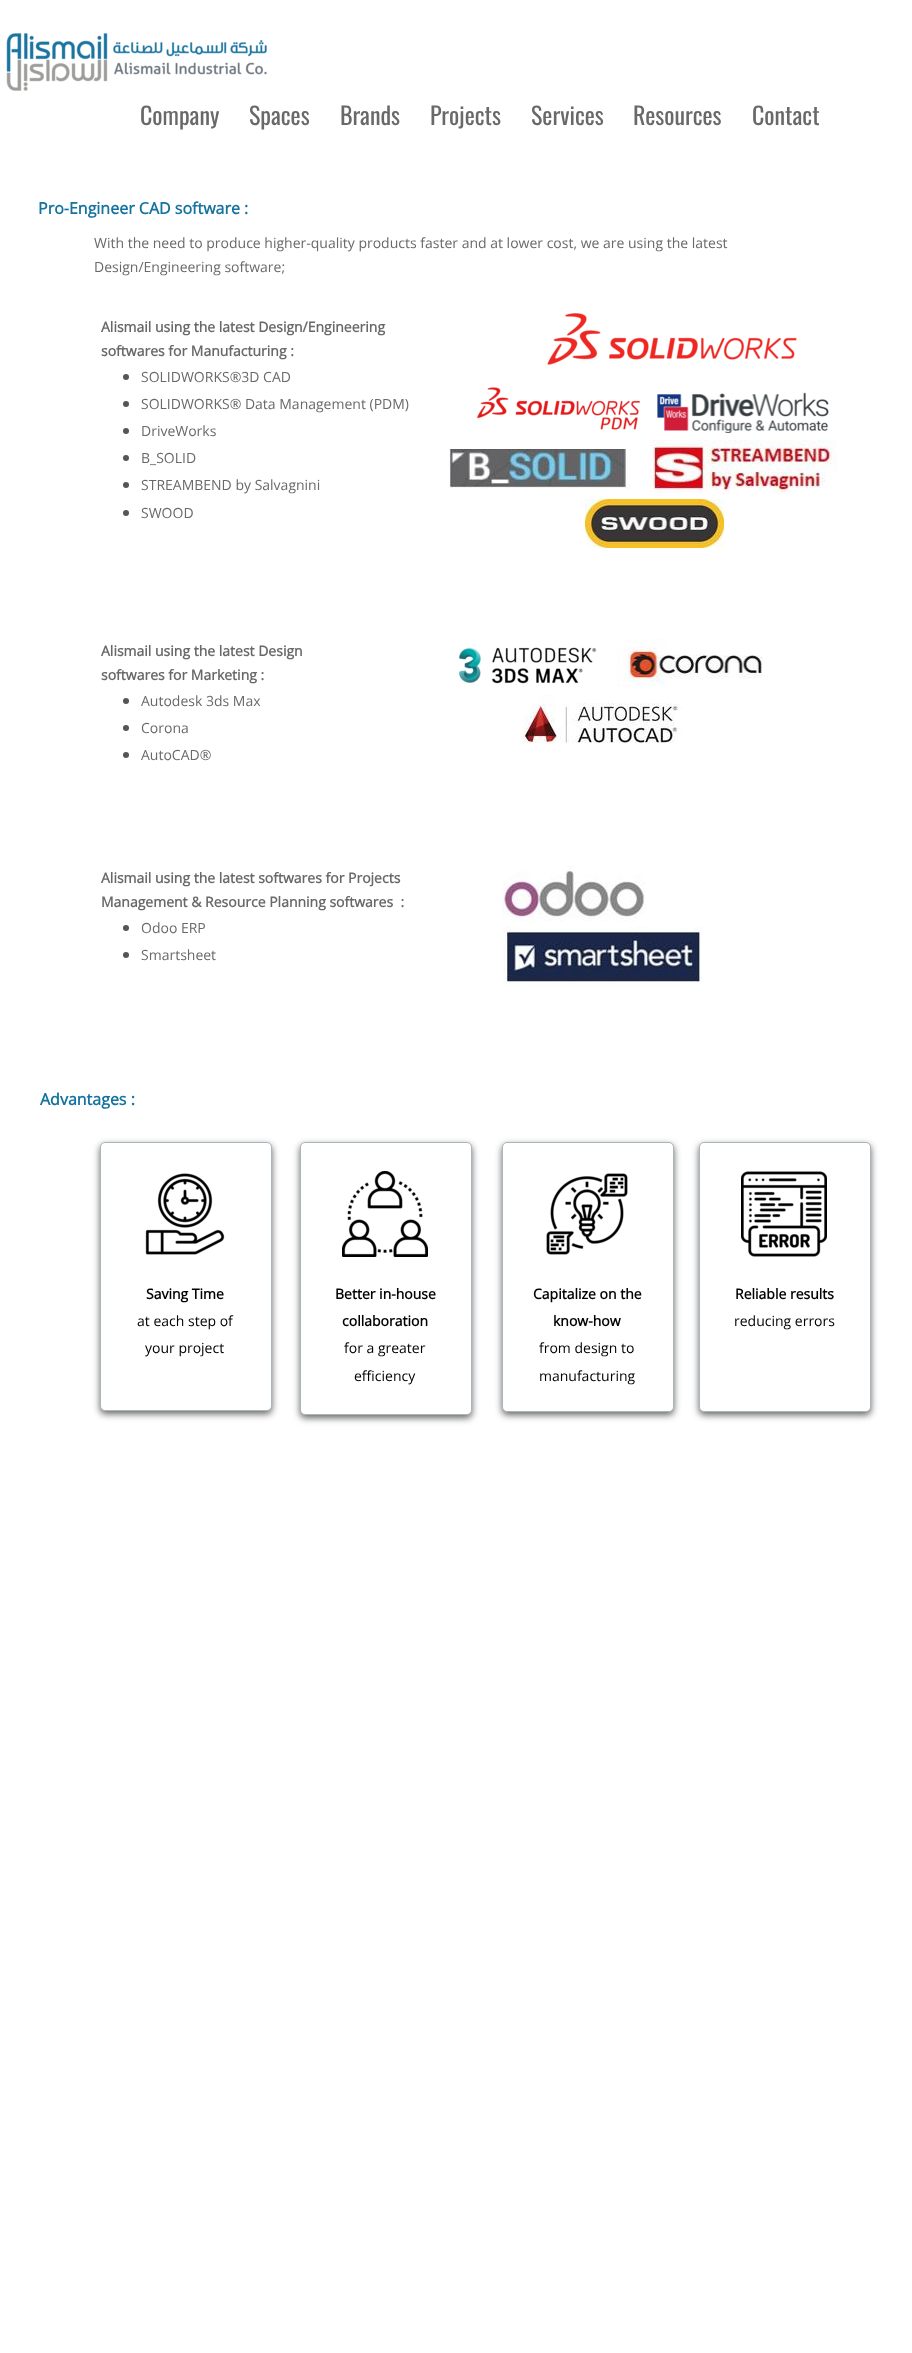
async function draw(canvas) {
  canvas.width = 912;
  canvas.height = 2353;
  const ctx = canvas.getContext('2d');
  ctx.miterLimit = 4;
  ctx.fontKerning = 'normal';
  function label(s, x, y, font, color) {
    ctx.font = font;
    ctx.fillStyle = color;
    ctx.fillText(s, x, y);
  }
  function rect(x, y, w, h, color) {
    ctx.fillStyle = color;
    ctx.fillRect(x, y, w, h);
  }
  async function image(src, x, y, w, h) {
    const img = new Image();
    img.src = src;
    await img.decode();
    ctx.drawImage(img, x, y, w, h);
  }

  rect(0, 0, 912, 2353, '#fff');
  await image('assets/img1.png', 6, 33, 102, 58);
  await image('assets/img2.png', 113, 39, 154, 36);
  label('Company', 140, 125, '24px Oswald', '#696969');
  label('Spaces', 249, 125, '24px Oswald', '#696969');
  label('Brands', 340, 125, '24px Oswald', '#696969');
  label('Projects', 430, 125, '24px Oswald', '#696969');
  label('Services', 531, 125, '24px Oswald', '#696969');
  label('Resources', 633, 125, '24px Oswald', '#696969');
  label('Contact', 752, 125, '24px Oswald', '#696969');
  label('Pro-Engineer CAD software :', 38, 214, 'bold 16px Open Sans', '#16739f');
  label('With the need to produce higher-quality products faster and at lower cost, we are using the latest', 94, 248, '14px Open Sans', '#696969');
  label('Design/Engineering software;', 94, 272, '14px Open Sans', '#696969');
  label('Alismail using the latest Design/Engineering', 101, 332, 'bold 14px Open Sans', '#696969');
  label('softwares for Manufacturing :', 101, 356, 'bold 14px Open Sans', '#696969');
  ctx.fillStyle = '#555';
  ctx.beginPath();
  ctx.arc(126, 377, 3, 0, 2 * Math.PI);
  ctx.fill();
  label('SOLIDWORKS®3D CAD', 141, 382, '14px Open Sans', '#696969');
  ctx.fillStyle = '#555';
  ctx.beginPath();
  ctx.arc(126, 404, 3, 0, 2 * Math.PI);
  ctx.fill();
  label('SOLIDWORKS® Data Management (PDM)', 141, 409, '14px Open Sans', '#696969');
  ctx.fillStyle = '#555';
  ctx.beginPath();
  ctx.arc(126, 431, 3, 0, 2 * Math.PI);
  ctx.fill();
  label('DriveWorks', 141, 436, '14px Open Sans', '#696969');
  ctx.fillStyle = '#555';
  ctx.beginPath();
  ctx.arc(126, 458, 3, 0, 2 * Math.PI);
  ctx.fill();
  label('B_SOLID', 141, 463, '14px Open Sans', '#696969');
  ctx.fillStyle = '#555';
  ctx.beginPath();
  ctx.arc(126, 485, 3, 0, 2 * Math.PI);
  ctx.fill();
  label('STREAMBEND by Salvagnini', 141, 490, '14px Open Sans', '#696969');
  ctx.fillStyle = '#555';
  ctx.beginPath();
  ctx.arc(126, 513, 3, 0, 2 * Math.PI);
  ctx.fill();
  label('SWOOD', 141, 518, '14px Open Sans', '#696969');
  await image('assets/img3.png', 547, 313, 250, 52);
  await image('assets/img4.png', 477, 387, 164, 43);
  await image('assets/img5.png', 657, 392, 172, 41);
  await image('assets/img6.png', 449, 449, 181, 40);
  await image('assets/img7.png', 650, 440, 187, 54);
  await image('assets/img8.png', 585, 499, 139, 49);
  label('Alismail using the latest Design', 101, 656, 'bold 14px Open Sans', '#696969');
  label('softwares for Marketing :', 101, 680, 'bold 14px Open Sans', '#696969');
  ctx.fillStyle = '#555';
  ctx.beginPath();
  ctx.arc(126, 701, 3, 0, 2 * Math.PI);
  ctx.fill();
  label('Autodesk 3ds Max', 141, 706, '14px Open Sans', '#696969');
  ctx.fillStyle = '#555';
  ctx.beginPath();
  ctx.arc(126, 728, 3, 0, 2 * Math.PI);
  ctx.fill();
  label('Corona', 141, 733, '14px Open Sans', '#696969');
  ctx.fillStyle = '#555';
  ctx.beginPath();
  ctx.arc(126, 755, 3, 0, 2 * Math.PI);
  ctx.fill();
  label('AutoCAD®', 141, 760, '14px Open Sans', '#696969');
  await image('assets/img9.png', 458, 647, 139, 37);
  await image('assets/img10.png', 617, 639, 146, 48);
  await image('assets/img11.png', 523, 695, 160, 49);
  label('Alismail using the latest softwares for Projects', 101, 883, 'bold 14px Open Sans', '#696969');
  label('Management & Resource Planning softwares  :', 101, 907, 'bold 14px Open Sans', '#696969');
  ctx.fillStyle = '#555';
  ctx.beginPath();
  ctx.arc(126, 928, 3, 0, 2 * Math.PI);
  ctx.fill();
  label('Odoo ERP', 141, 933, '14px Open Sans', '#696969');
  ctx.fillStyle = '#555';
  ctx.beginPath();
  ctx.arc(126, 955, 3, 0, 2 * Math.PI);
  ctx.fill();
  label('Smartsheet', 141, 960, '14px Open Sans', '#696969');
  await image('assets/img12.png', 502, 866, 144, 56);
  await image('assets/img13.png', 502, 927, 200, 59);
  label('Advantages :', 40, 1105, 'bold 16px Open Sans', '#16739f');
  ctx.fillStyle = '#323232bf';
  ctx.filter = 'blur(3.5px)';
  ctx.beginPath();
  ctx.roundRect(100, 1145, 172, 269, 5);
  ctx.fill();
  ctx.filter = 'none';
  ctx.fillStyle = '#fff';
  ctx.beginPath();
  ctx.roundRect(100.5, 1142.5, 171, 268, 4.5);
  ctx.fill();
  ctx.strokeStyle = '#a9b4bb';
  ctx.stroke();
  ctx.fillStyle = '#323232bf';
  ctx.filter = 'blur(3.5px)';
  ctx.beginPath();
  ctx.roundRect(300, 1145, 172, 273, 5);
  ctx.fill();
  ctx.filter = 'none';
  ctx.fillStyle = '#fff';
  ctx.beginPath();
  ctx.roundRect(300.5, 1142.5, 171, 272, 4.5);
  ctx.fill();
  ctx.stroke();
  ctx.fillStyle = '#323232bf';
  ctx.filter = 'blur(3.5px)';
  ctx.beginPath();
  ctx.roundRect(502, 1145, 172, 270, 5);
  ctx.fill();
  ctx.filter = 'none';
  ctx.fillStyle = '#fff';
  ctx.beginPath();
  ctx.roundRect(502.5, 1142.5, 171, 269, 4.5);
  ctx.fill();
  ctx.stroke();
  ctx.fillStyle = '#323232bf';
  ctx.filter = 'blur(3.5px)';
  ctx.beginPath();
  ctx.roundRect(699, 1145, 172, 270, 5);
  ctx.fill();
  ctx.filter = 'none';
  ctx.fillStyle = '#fff';
  ctx.beginPath();
  ctx.roundRect(699.5, 1142.5, 171, 269, 4.5);
  ctx.fill();
  ctx.stroke();
  await image('assets/img14.png', 145, 1173, 80, 82);
  await image('assets/img15.png', 342, 1171, 86, 86);
  await image('assets/img16.png', 546, 1173, 82, 82);
  await image('assets/img17.png', 741, 1171, 86, 86);
  label('Saving Time', 146, 1299, 'bold 14px Open Sans', '#000');
  label('at each step of', 137, 1326, '14px Open Sans', '#000');
  label('your project', 145, 1353, '14px Open Sans', '#000');
  label('Better in-house', 335, 1299, 'bold 14px Open Sans', '#000');
  label('collaboration', 342, 1326, 'bold 14px Open Sans', '#000');
  label('for a greater', 344, 1353, '14px Open Sans', '#000');
  label('efficiency', 354, 1381, '14px Open Sans', '#000');
  label('Capitalize on the', 533, 1299, 'bold 14px Open Sans', '#000');
  label('know-how', 553, 1326, 'bold 14px Open Sans', '#000');
  label('from design to', 539, 1353, '14px Open Sans', '#000');
  label('manufacturing', 539, 1381, '14px Open Sans', '#000');
  label('Reliable results', 735, 1299, 'bold 14px Open Sans', '#000');
  label('reducing errors', 734, 1326, '14px Open Sans', '#000');
}

draw(document.querySelector('canvas'));
